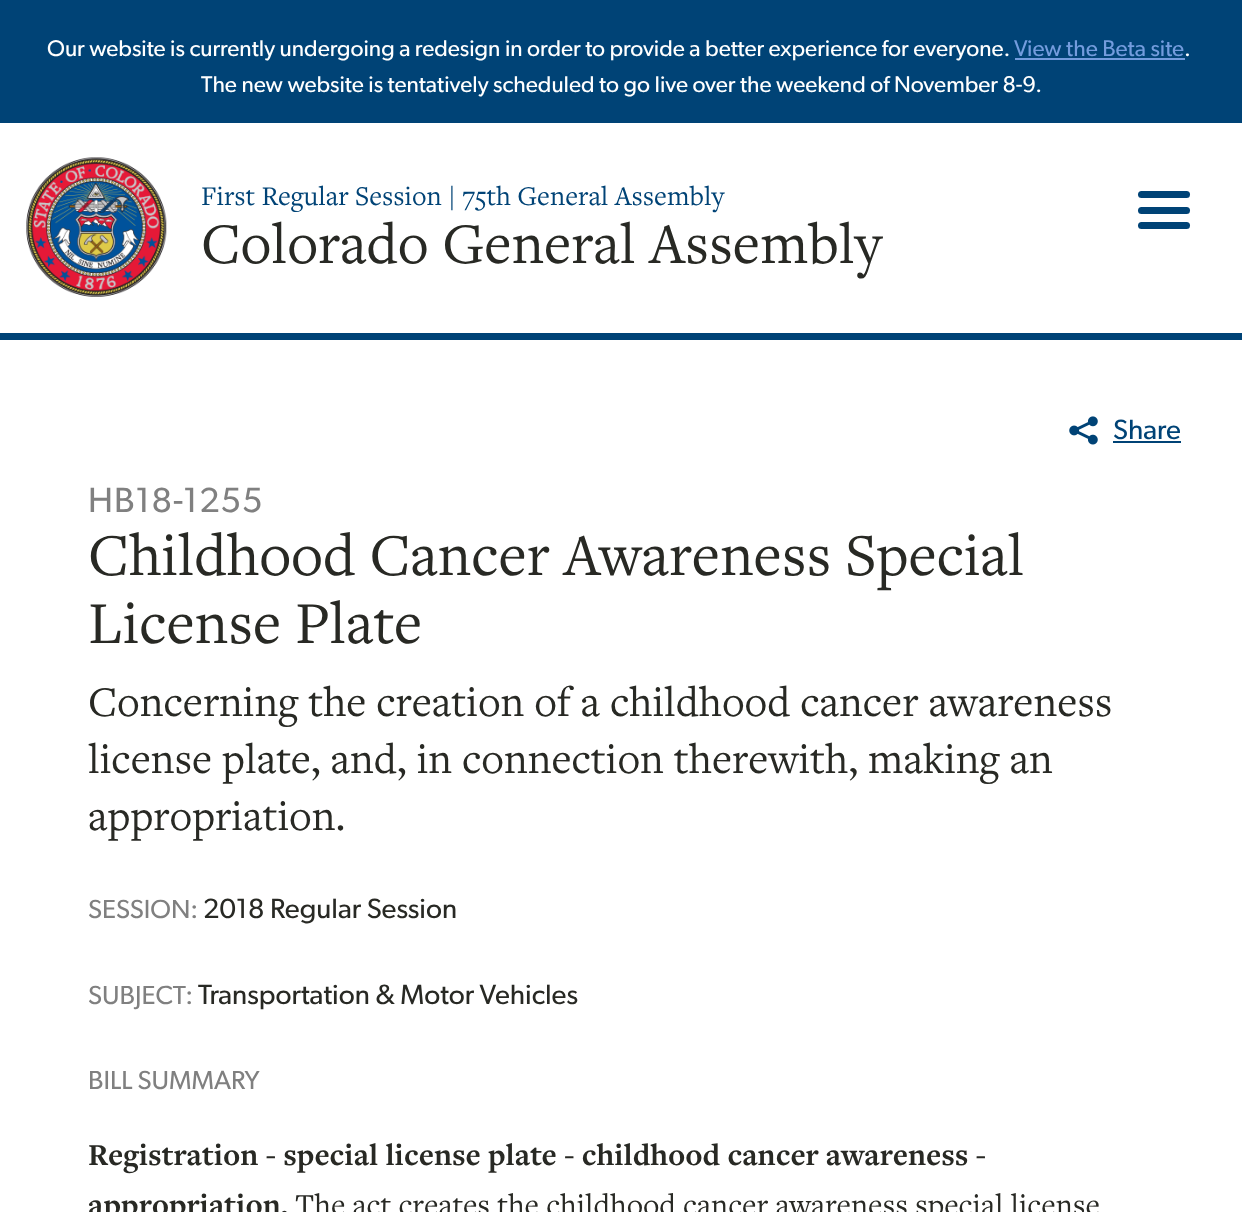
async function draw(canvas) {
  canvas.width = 1242;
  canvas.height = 1212;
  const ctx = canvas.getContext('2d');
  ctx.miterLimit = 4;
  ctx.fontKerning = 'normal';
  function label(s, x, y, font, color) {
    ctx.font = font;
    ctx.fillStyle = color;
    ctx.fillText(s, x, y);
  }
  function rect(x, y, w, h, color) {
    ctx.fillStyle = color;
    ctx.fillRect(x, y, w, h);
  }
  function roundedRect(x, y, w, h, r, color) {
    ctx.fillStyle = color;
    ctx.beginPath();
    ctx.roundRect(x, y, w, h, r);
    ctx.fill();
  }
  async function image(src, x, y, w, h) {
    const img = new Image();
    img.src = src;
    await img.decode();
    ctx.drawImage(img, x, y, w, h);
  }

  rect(0, 0, 1242, 1212, '#fff');
  rect(0, 0, 1242, 123, '#004376');
  label('Our website is currently undergoing a redesign in order to provide a better experience for everyone.', 47, 56, '22.75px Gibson', '#fff');
  label('View the Beta site', 1014, 56, '22.75px Gibson', '#739cdd');
  rect(1015, 58, 170, 2, '#739cdd');
  label('.', 1184, 56, '22.75px Gibson', '#fff');
  label('The new website is tentatively scheduled to go live over the weekend of November 8-9.', 201, 92, '22.75px Gibson', '#fff');
  rect(0, 333, 1242, 7, '#004376');
  await image('assets/img1.png', 26, 157, 141, 140);
  label('First Regular Session | 75th General Assembly', 201, 205, '28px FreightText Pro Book', '#004376');
  label('Colorado General Assembly', 201, 263, '59.5px FreightText Pro Book', '#282924');
  roundedRect(1138, 207, 52, 7, 3.5, '#004376');
  roundedRect(1138, 191, 52, 7, 3.5, '#004376');
  roundedRect(1138, 222, 52, 7, 3.5, '#004376');
  await image('assets/img2.png', 1069, 416, 29, 29);
  label('Share', 1113, 439, '28px Gibson', '#004376');
  rect(1113, 441, 68, 2, '#004376');
  ctx.letterSpacing = '0.9px';
  label('HB18-1255', 88, 512, '35px Gibson', '#808080');
  ctx.letterSpacing = '0px';
  label('Childhood Cancer Awareness Special', 88, 575, '61.6px FreightText Pro Book', '#282924');
  label('License Plate', 88, 643, '61.6px FreightText Pro Book', '#282924');
  label('Concerning the creation of a childhood cancer awareness', 88, 716, '43.75px FreightText Pro Book', '#282924');
  label('license plate, and, in connection therewith, making an', 88, 773, '43.75px FreightText Pro Book', '#282924');
  label('appropriation.', 88, 830, '43.75px FreightText Pro Book', '#282924');
  label('SESSION:', 88, 918, '26.25px Gibson', '#808080');
  label('2018 Regular Session', 203, 918, '28px Gibson', '#282924');
  label('SUBJECT:', 88, 1004, '26.25px Gibson', '#808080');
  label('Transportation & Motor Vehicles', 198, 1004, '28px Gibson', '#282924');
  label('BILL SUMMARY', 88, 1089, '26.25px Gibson', '#808080');
  label('Registration - special license plate - childhood cancer awareness -', 88, 1165, 'bold 31.5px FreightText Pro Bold', '#282924');
  label('appropriation.', 88, 1215, 'bold 31.5px FreightText Pro Bold', '#282924');
  label('The act creates the childhood cancer awareness special license', 295, 1215, '31.5px FreightText Pro Book', '#282924');
}

draw(document.querySelector('canvas'));
